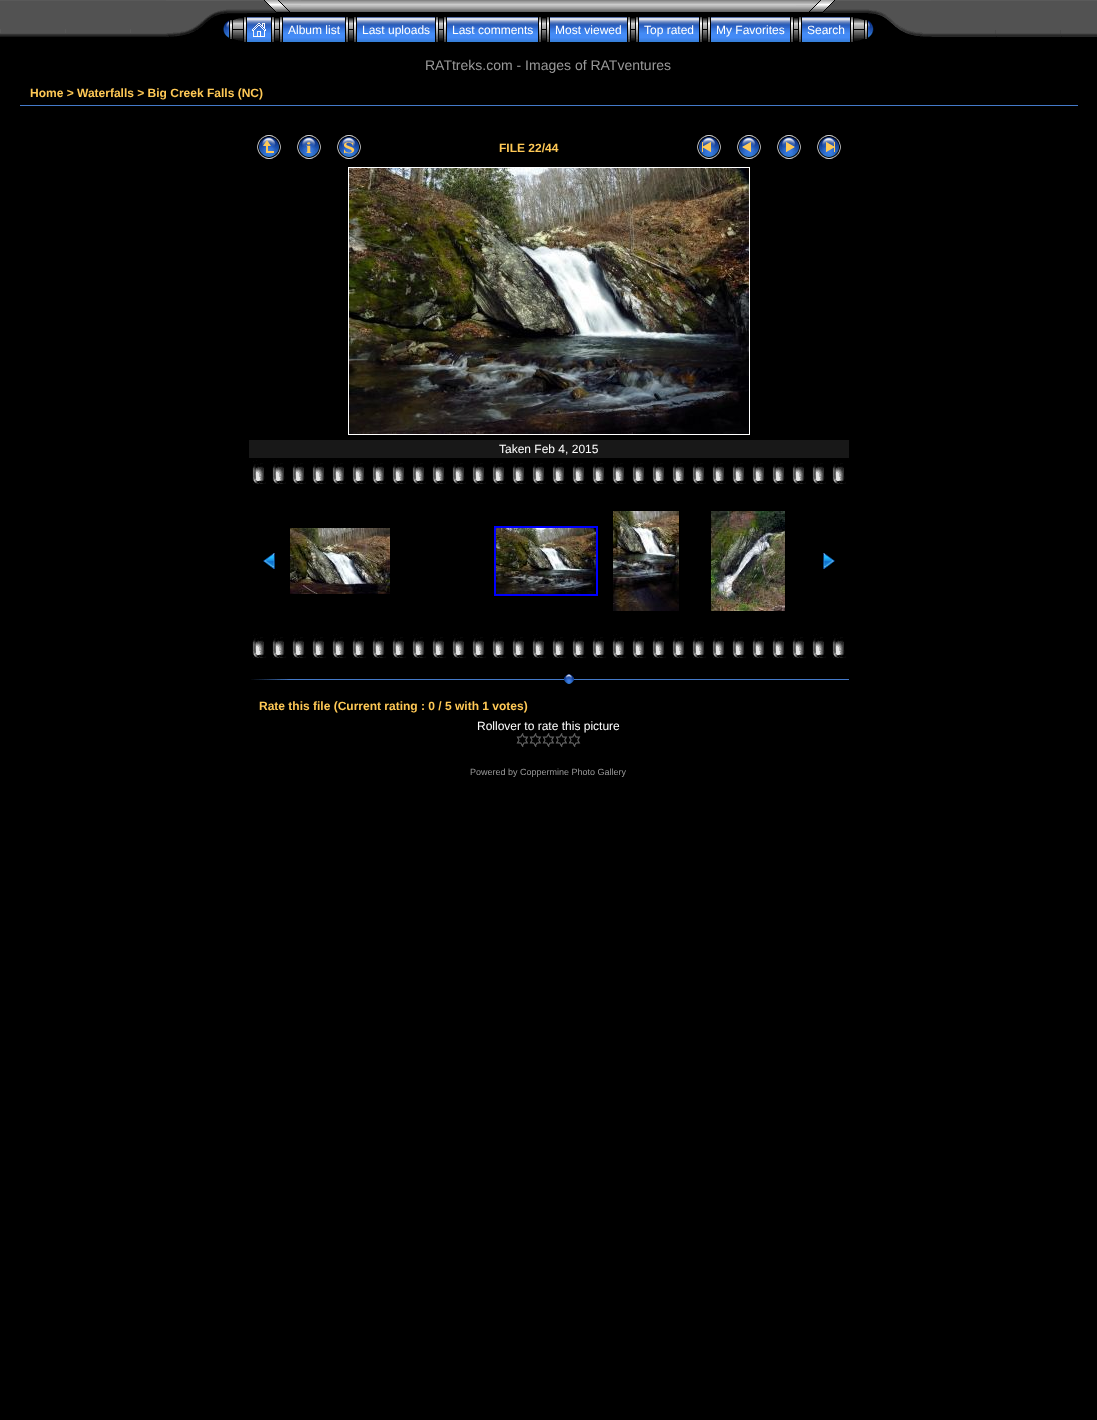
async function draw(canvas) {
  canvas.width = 1097;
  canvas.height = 1420;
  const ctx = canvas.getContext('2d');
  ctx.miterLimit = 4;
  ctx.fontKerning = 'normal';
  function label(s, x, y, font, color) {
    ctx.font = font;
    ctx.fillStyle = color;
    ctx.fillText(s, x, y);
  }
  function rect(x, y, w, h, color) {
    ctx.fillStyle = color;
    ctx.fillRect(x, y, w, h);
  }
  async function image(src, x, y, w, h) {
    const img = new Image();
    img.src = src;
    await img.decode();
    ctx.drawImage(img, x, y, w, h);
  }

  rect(0, 0, 1097, 1420, '#000');
  await image('assets/img1.png', 0, 0, 166, 37);
  await image('assets/img2.png', 166, 0, 135, 17);
  await image('assets/img3.png', 301, 0, 495, 12);
  await image('assets/img4.png', 796, 0, 135, 17);
  await image('assets/img5.png', 166, 17, 47, 20);
  await image('assets/img6.png', 223, 17, 23, 25);
  await image('assets/img7.png', 247, 17, 24, 25);
  await image('assets/img8.png', 252, 23, 14, 14);
  await image('assets/img9.png', 272, 17, 10, 25);
  await image('assets/img10.png', 283, 17, 62, 25);
  label('Album list', 288, 34, '12px Liberation Sans', '#fff');
  await image('assets/img9.png', 346, 17, 10, 25);
  await image('assets/img11.png', 357, 17, 78, 25);
  label('Last uploads', 362, 34, '12px Liberation Sans', '#fff');
  await image('assets/img9.png', 436, 17, 10, 25);
  await image('assets/img12.png', 447, 17, 91, 25);
  label('Last comments', 452, 34, '12px Liberation Sans', '#fff');
  await image('assets/img9.png', 539, 17, 10, 25);
  await image('assets/img13.png', 550, 17, 77, 25);
  label('Most viewed', 555, 34, '12px Liberation Sans', '#fff');
  await image('assets/img9.png', 628, 17, 10, 25);
  await image('assets/img14.png', 639, 17, 60, 25);
  label('Top rated', 644, 34, '12px Liberation Sans', '#fff');
  await image('assets/img9.png', 700, 17, 10, 25);
  await image('assets/img15.png', 711, 17, 79, 25);
  label('My Favorites', 716, 34, '12px Liberation Sans', '#fff');
  await image('assets/img9.png', 791, 17, 10, 25);
  await image('assets/img16.png', 802, 17, 48, 25);
  label('Search', 807, 34, '12px Liberation Sans', '#fff');
  await image('assets/img17.png', 850, 17, 26, 25);
  await image('assets/img18.png', 884, 17, 47, 20);
  await image('assets/img19.png', 931, 0, 166, 37);
  label('RATtreks.com - Images of RATventures', 425, 70, '14px Liberation Sans', '#999');
  rect(20, 105, 1058, 1, '#447ac9');
  label('Home > Waterfalls > Big Creek Falls (NC)', 30, 97, 'bold 12px Liberation Sans', '#ffc956');
  await image('assets/img20.png', 257, 135, 24, 24);
  await image('assets/img21.png', 297, 135, 24, 24);
  await image('assets/img22.png', 337, 135, 24, 24);
  label('FILE 22/44', 499, 152, 'bold 12px Liberation Sans', '#ffc956');
  await image('assets/img23.png', 697, 135, 24, 24);
  await image('assets/img24.png', 737, 135, 24, 24);
  await image('assets/img25.png', 777, 135, 24, 24);
  await image('assets/img26.png', 817, 135, 24, 24);
  ctx.strokeStyle = '#fff';
  ctx.strokeRect(348.5, 167.5, 401, 267);
  await image('assets/img27.png', 349, 168, 400, 266);
  rect(249, 440, 600, 18, '#181818');
  label('Taken Feb 4, 2015', 499, 453, '12px Liberation Sans', '#fff');
  await image('assets/img28.png', 252, 460, 594, 24);
  await image('assets/img29.png', 263, 553, 12, 16);
  await image('assets/img30.png', 290, 528, 100, 66);
  ctx.strokeStyle = '#00f';
  ctx.lineWidth = 2;
  ctx.strokeRect(495, 527, 102, 68);
  await image('assets/img31.png', 496, 528, 100, 66);
  await image('assets/img32.png', 613, 511, 66, 100);
  await image('assets/img33.png', 711, 511, 74, 100);
  await image('assets/img34.png', 823, 553, 12, 16);
  await image('assets/img28.png', 252, 634, 594, 24);
  await image('assets/img35.png', 251, 679, 38, 1);
  rect(289, 679, 560, 1, '#447ac9');
  await image('assets/img36.png', 564, 674, 10, 10);
  label('Rate this file (Current rating : 0 / 5 with 1 votes)', 259, 710, 'bold 12px Liberation Sans', '#ffc956');
  label('Rollover to rate this picture', 477, 730, '12px Liberation Sans', '#fff');
  await image('assets/img37.png', 516, 733, 13, 14);
  await image('assets/img37.png', 529, 733, 13, 14);
  await image('assets/img37.png', 542, 733, 13, 14);
  await image('assets/img37.png', 555, 733, 13, 14);
  await image('assets/img37.png', 568, 733, 13, 14);
  label('Powered by Coppermine Photo Gallery', 470, 775, '9px Liberation Sans', '#999');
}

draw(document.querySelector('canvas'));
